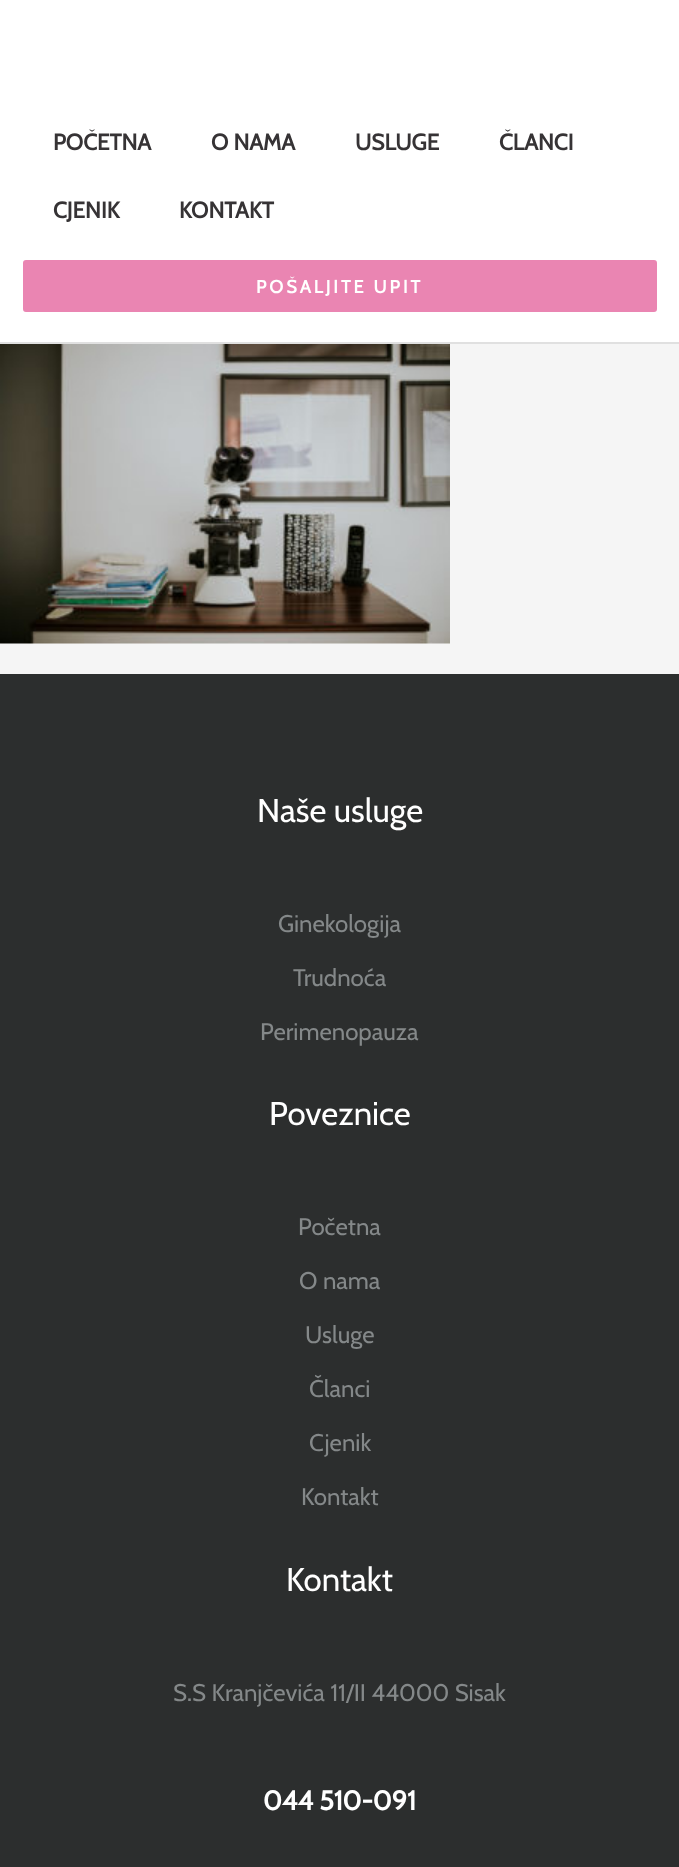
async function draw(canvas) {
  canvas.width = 679;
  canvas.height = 1867;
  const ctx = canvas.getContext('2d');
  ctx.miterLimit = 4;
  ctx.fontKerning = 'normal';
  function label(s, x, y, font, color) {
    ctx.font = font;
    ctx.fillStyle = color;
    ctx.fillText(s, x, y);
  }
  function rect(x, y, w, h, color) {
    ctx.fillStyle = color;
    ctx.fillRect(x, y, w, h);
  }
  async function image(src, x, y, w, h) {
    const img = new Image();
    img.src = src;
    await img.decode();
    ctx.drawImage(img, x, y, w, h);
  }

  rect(0, 0, 679, 1867, '#f5f5f5');
  rect(0, 0, 679, 342, '#fff');
  rect(0, 342, 679, 2, '#e0e0e0');
  label('POČETNA', 53, 150, 'bold 22.5px Cabin', '#363335');
  label('O NAMA', 211, 150, 'bold 22.5px Cabin', '#363335');
  label('USLUGE', 355, 150, 'bold 22.5px Cabin', '#363335');
  label('ČLANCI', 499, 150, 'bold 22.5px Cabin', '#363335');
  label('CJENIK', 53, 218, 'bold 22.5px Cabin', '#363335');
  label('KONTAKT', 179, 218, 'bold 22.5px Cabin', '#363335');
  ctx.fillStyle = '#ea85b2';
  ctx.beginPath();
  ctx.roundRect(24, 261, 632, 50, 2);
  ctx.fill();
  ctx.strokeStyle = '#ea85b2';
  ctx.lineWidth = 2;
  ctx.stroke();
  ctx.letterSpacing = '3px';
  label('POŠALJITE UPIT', 256, 293, 'bold 18px Cabin', '#fff');
  await image('assets/img1.png', 0, 344, 450, 300);
  rect(0, 674, 679, 1193, '#2c2e2e');
  ctx.letterSpacing = '0px';
  label('Naše usluge', 257, 822, '33px Cabin', '#fff');
  label('Ginekologija', 278, 932, '24px Cabin', '#848889');
  label('Trudnoća', 293, 986, '24px Cabin', '#848889');
  label('Perimenopauza', 260, 1040, '24px Cabin', '#848889');
  label('Poveznice', 269, 1125, '33px Cabin', '#fff');
  label('Početna', 298, 1235, '24px Cabin', '#848889');
  label('O nama', 299, 1289, '24px Cabin', '#848889');
  label('Usluge', 305, 1343, '24px Cabin', '#848889');
  label('Članci', 309, 1397, '24px Cabin', '#848889');
  label('Cjenik', 309, 1451, '24px Cabin', '#848889');
  label('Kontakt', 301, 1505, '24px Cabin', '#848889');
  label('Kontakt', 286, 1591, '33px Cabin', '#fff');
  label('S.S Kranjčevića 11/II 44000 Sisak', 173, 1701, '24px Cabin', '#848889');
  label('044 510-091', 263, 1810, 'bold 27px Cabin', '#fff');
}

draw(document.querySelector('canvas'));
